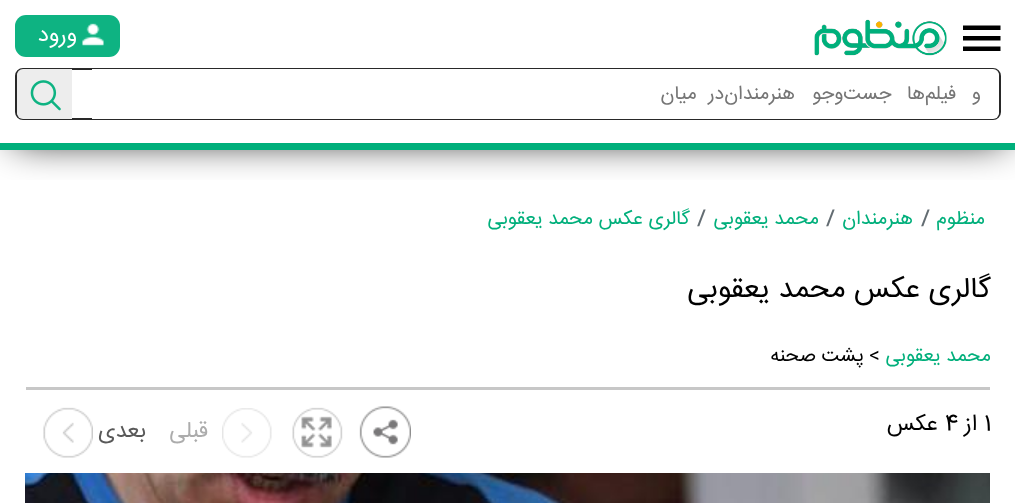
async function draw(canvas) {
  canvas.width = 1015;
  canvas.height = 503;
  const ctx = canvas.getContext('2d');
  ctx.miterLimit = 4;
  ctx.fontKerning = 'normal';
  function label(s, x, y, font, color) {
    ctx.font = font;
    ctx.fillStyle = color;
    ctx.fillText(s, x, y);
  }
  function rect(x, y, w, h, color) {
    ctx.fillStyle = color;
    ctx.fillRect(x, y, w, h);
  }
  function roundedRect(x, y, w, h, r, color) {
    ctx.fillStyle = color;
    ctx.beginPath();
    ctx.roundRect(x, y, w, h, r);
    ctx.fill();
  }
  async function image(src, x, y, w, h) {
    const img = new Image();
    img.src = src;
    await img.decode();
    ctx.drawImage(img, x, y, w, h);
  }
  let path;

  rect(0, 0, 1015, 503, '#fff');
  ctx.save();
  ctx.beginPath();
  ctx.rect(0, 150, 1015, 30);
  ctx.clip();
  ctx.fillStyle = '#000';
  ctx.filter = 'blur(19.5px)';
  ctx.beginPath();
  ctx.rect(14, 14, 991, 126);
  ctx.fill();
  ctx.filter = 'none';
  ctx.restore();
  rect(0, 143, 1015, 7, '#00af7b');
  await image('assets/img1.png', 814, 19, 133, 37);
  ctx.fillStyle = '#000';
  path = new Path2D('M963 51V46.5H1000.5V51ZM963 40.5V36H1000.5V40.5ZM963 25.5H1000.5V30H963Z');
  ctx.fill(path);
  roundedRect(15, 15, 105, 42, 11, '#0eb382');
  await image('assets/img2.png', 82, 23, 22, 23);
  ctx.direction = 'rtl';
  label('ورود', 77, 41, '22.5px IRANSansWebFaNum', '#fff');
  ctx.beginPath();
  ctx.roundRect(16, 69, 984, 50, 7);
  ctx.strokeStyle = '#292929';
  ctx.lineWidth = 2;
  ctx.stroke();
  ctx.beginPath();
  ctx.roundRect(92, 69, 907, 50, [0, 6, 6, 0]);
  ctx.fill();
  ctx.wordSpacing = '10px';
  label('و فیلم‌ها جست‌وجو', 981, 99, '19.5px IRANSansWebFaNum', '#757575');
  ctx.wordSpacing = '0px';
  label('هنرمندان', 795, 99, '19.5px IRANSansWebFaNum', '#757575');
  ctx.wordSpacing = '6px';
  label('در میان', 724, 99, '19.5px IRANSansWebFaNum', '#757575');
  ctx.fillStyle = '#ededed';
  ctx.beginPath();
  ctx.roundRect(17, 69, 55, 50, [6, 0, 0, 6]);
  ctx.fill();
  await image('assets/img3.png', 30, 80, 31, 31);
  ctx.wordSpacing = '0px';
  label('منظوم', 985, 224, '19.5px IRANSansWebFaNum', '#00af7b');
  ctx.direction = 'ltr';
  label('/', 921, 224, 'bold 19.5px IRANSansWebFaNum', '#636c72');
  ctx.direction = 'rtl';
  label('هنرمندان', 913, 224, '19.5px IRANSansWebFaNum', '#00af7b');
  ctx.direction = 'ltr';
  label('/', 826, 224, 'bold 19.5px IRANSansWebFaNum', '#636c72');
  ctx.direction = 'rtl';
  label('محمد یعقوبی', 819, 224, '19.5px IRANSansWebFaNum', '#00af7b');
  ctx.direction = 'ltr';
  label('/', 697, 224, 'bold 19.5px IRANSansWebFaNum', '#636c72');
  ctx.direction = 'rtl';
  label('گالری عکس محمد یعقوبی', 690, 224, '19.5px IRANSansWebFaNum', '#00af7b');
  label('گالری عکس محمد یعقوبی', 991, 297, '29.25px IRANSansWebFaNum', '#000');
  label('محمد یعقوبی', 991, 361, '19.5px IRANSansWebFaNum', '#00af7b');
  label('> پشت صحنه', 880, 361, '19.5px IRANSansWebFaNum', '#000');
  rect(26, 387, 964, 3, '#c7c7c7');
  ctx.direction = 'ltr';
  label('1', 984, 430, '22.5px IRANSansWebFaNum', '#000');
  ctx.direction = 'rtl';
  label('از', 977, 430, '22.5px IRANSansWebFaNum', '#000');
  ctx.direction = 'ltr';
  label('4', 945, 430, '22.5px IRANSansWebFaNum', '#000');
  ctx.direction = 'rtl';
  label('عکس', 938, 430, '22.5px IRANSansWebFaNum', '#000');
  await image('assets/img4.png', 359, 406, 52, 52);
  await image('assets/img5.png', 292, 407, 51, 51);
  await image('assets/img6.png', 222, 408, 50, 50);
  label('قبلی', 208, 437, '22.5px IRANSansWebFaNum', '#acacac');
  label('بعدی', 146, 437, '22.5px IRANSansWebFaNum', '#595959');
  await image('assets/img7.png', 43, 407, 50, 51);
  await image('assets/img8.png', 25, 473, 965, 30);
}

draw(document.querySelector('canvas'));
